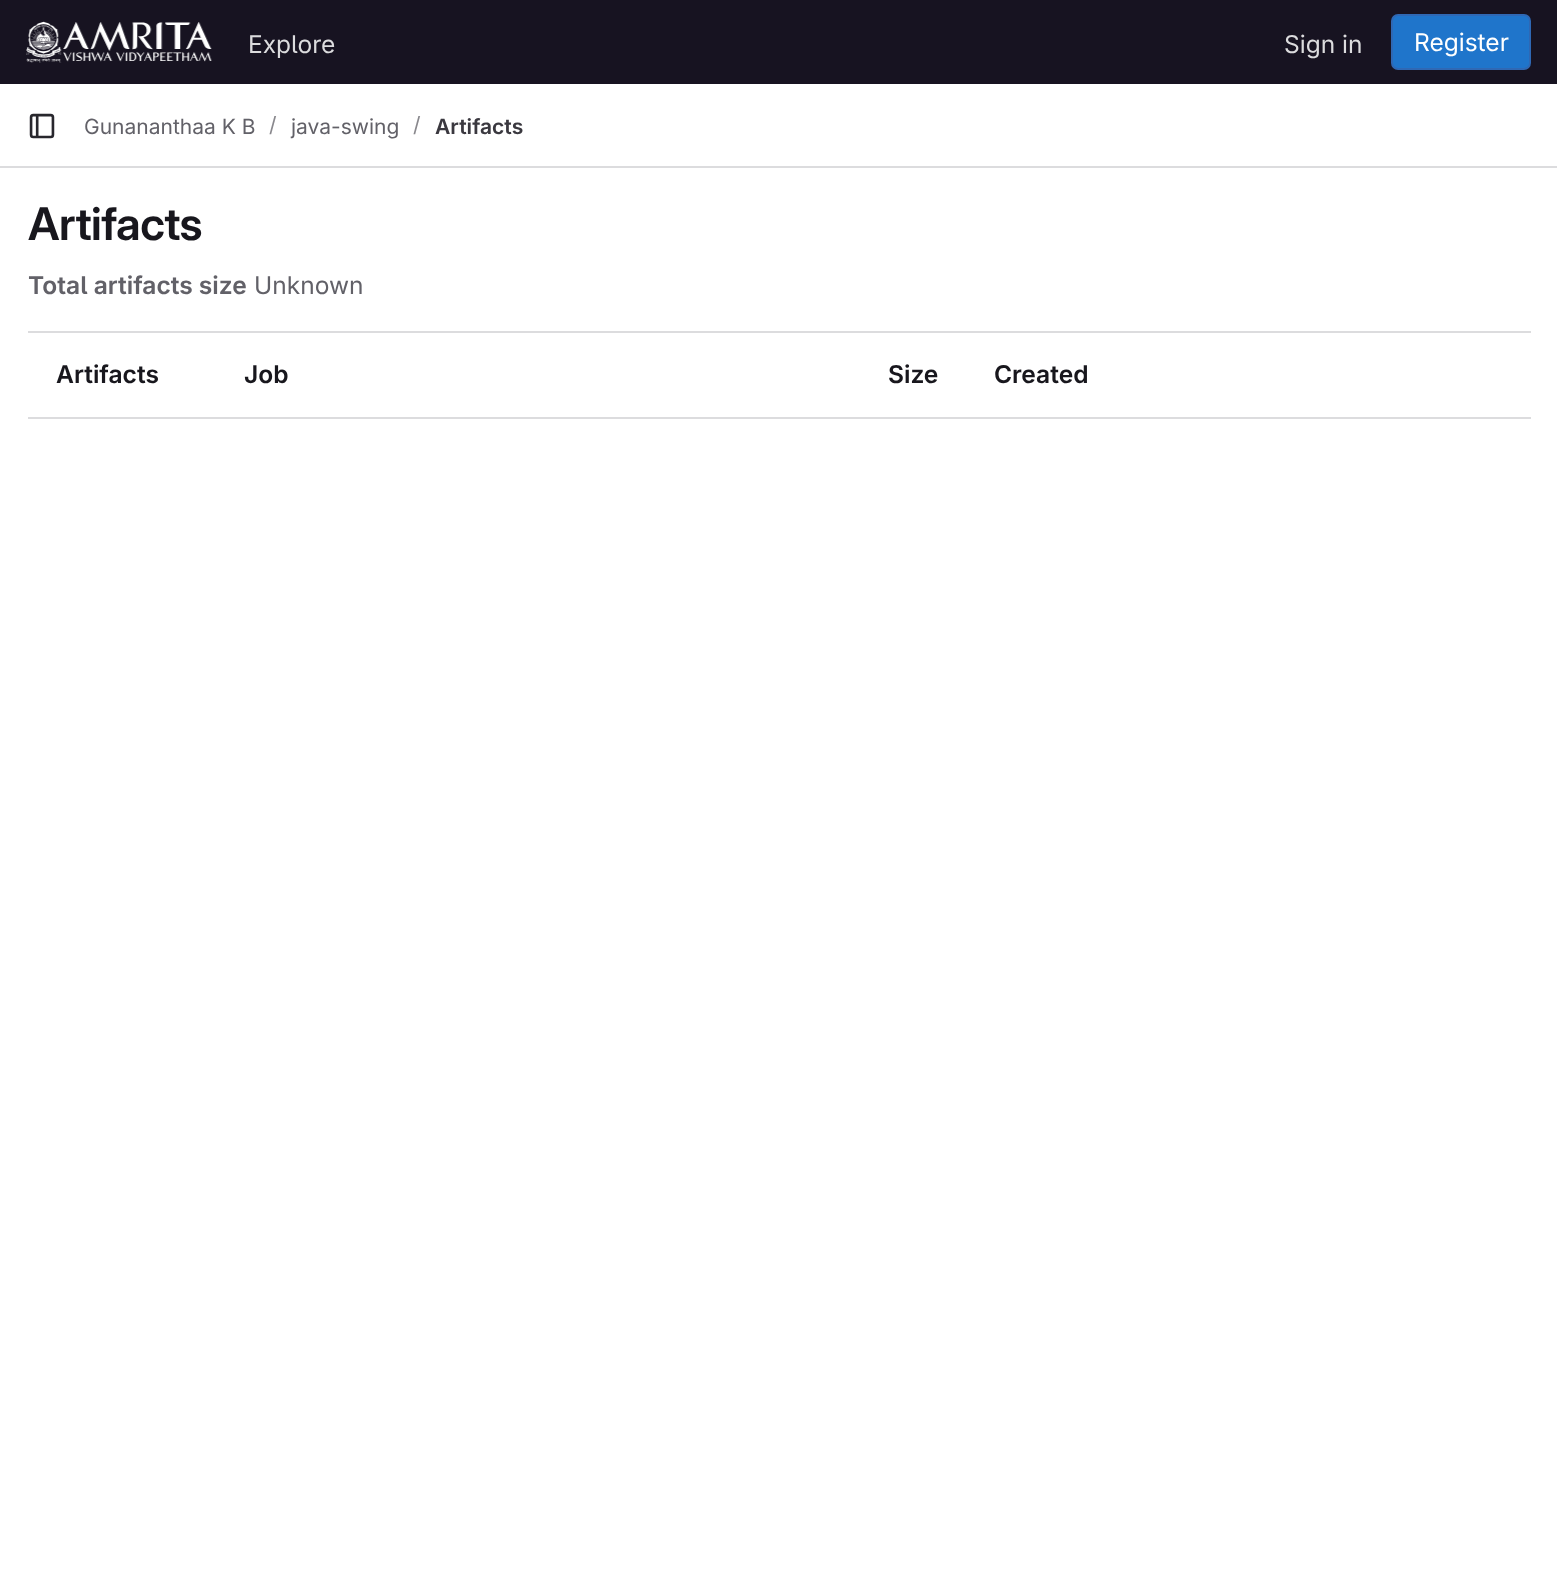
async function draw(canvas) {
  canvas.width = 1557;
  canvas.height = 1581;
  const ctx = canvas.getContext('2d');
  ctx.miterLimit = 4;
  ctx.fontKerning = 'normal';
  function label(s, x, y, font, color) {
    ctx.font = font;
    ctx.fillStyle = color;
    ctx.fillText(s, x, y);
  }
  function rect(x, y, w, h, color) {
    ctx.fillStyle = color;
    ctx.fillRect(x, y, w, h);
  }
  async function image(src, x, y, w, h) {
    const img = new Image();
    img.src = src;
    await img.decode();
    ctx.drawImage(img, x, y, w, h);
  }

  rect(0, 0, 1557, 1581, '#fff');
  rect(0, 0, 1557, 84, '#171321');
  await image('assets/img1.png', 26, 21, 186, 42);
  label('Explore', 248, 53, '24.5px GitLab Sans', '#dcdcde');
  label('Sign in', 1284, 53, '24.5px GitLab Sans', '#dcdcde');
  ctx.fillStyle = '#1f75cb';
  ctx.beginPath();
  ctx.roundRect(1392, 15, 138, 54, 6);
  ctx.fill();
  ctx.strokeStyle = '#2f68b4';
  ctx.lineWidth = 2;
  ctx.stroke();
  label('Register', 1414, 51, '24.5px GitLab Sans', '#fff');
  rect(0, 166, 1557, 2, '#dcdcde');
  await image('assets/img2.png', 29, 113, 26, 26);
  label('Gunananthaa K B', 84, 134, '21px GitLab Sans', '#626168');
  label('/', 269, 132, '21px GitLab Sans', '#89888d');
  label('java-swing', 291, 134, '21px GitLab Sans', '#626168');
  label('/', 413, 132, '21px GitLab Sans', '#89888d');
  label('Artifacts', 435, 134, '600 21px "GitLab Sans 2"', '#3a383f');
  ctx.letterSpacing = '-0.5px';
  label('Artifacts', 28, 240, '600 45px GitLab Sans', '#18171d');
  ctx.letterSpacing = '0px';
  label('Total artifacts size', 28, 294, '600 24.5px "GitLab Sans 2"', '#626168');
  label('Unknown', 254, 294, '24.5px GitLab Sans', '#626168');
  rect(28, 331, 1503, 2, '#dcdcde');
  rect(28, 417, 1503, 2, '#dcdcde');
  label('Artifacts', 56, 383, '600 24.5px "GitLab Sans 2"', '#18171d');
  label('Job', 244, 383, '600 24.5px "GitLab Sans 2"', '#18171d');
  label('Size', 888, 383, '600 24.5px "GitLab Sans 2"', '#18171d');
  label('Created', 994, 383, '600 24.5px "GitLab Sans 2"', '#18171d');
}

draw(document.querySelector('canvas'));
